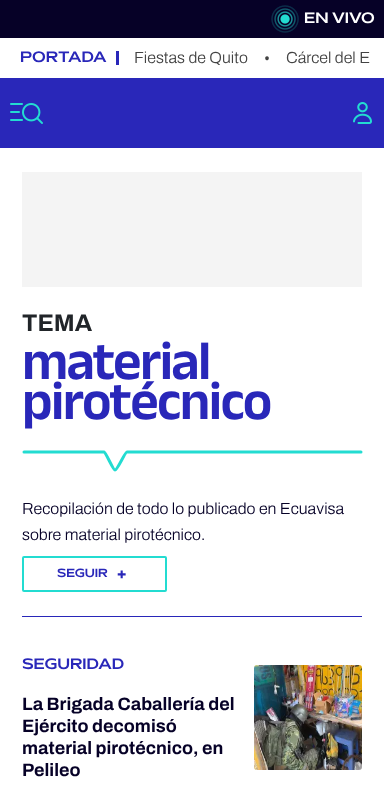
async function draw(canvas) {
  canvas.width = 384;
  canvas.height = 807;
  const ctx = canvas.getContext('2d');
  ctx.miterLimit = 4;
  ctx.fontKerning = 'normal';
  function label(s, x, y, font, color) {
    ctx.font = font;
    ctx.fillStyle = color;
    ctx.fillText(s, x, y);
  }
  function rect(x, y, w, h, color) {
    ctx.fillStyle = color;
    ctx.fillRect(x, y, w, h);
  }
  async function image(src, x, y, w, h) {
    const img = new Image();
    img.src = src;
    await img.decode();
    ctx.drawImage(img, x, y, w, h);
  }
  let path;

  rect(0, 0, 384, 807, '#fff');
  rect(0, 78, 384, 70, '#2927b9');
  rect(0, 0, 384, 38, '#060127');
  await image('assets/img1.png', 271, 5, 28, 28);
  label('EN VIVO', 304, 23, '600 14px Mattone', '#fff');
  label('PORTADA', 20, 62, '600 14px Mattone', '#2927b9');
  rect(116, 51, 3, 14, '#2927b9');
  label('Fiestas de Quito', 134, 63, '300 16px Archivo', '#434343');
  label('•', 264, 64, '16px Noto Sans', '#434343');
  label('Cárcel del E', 286, 63, '300 16px Archivo', '#434343');
  await image('assets/img2.png', 10, 103, 33, 21);
  await image('assets/img3.png', 353, 102, 19, 22);
  rect(22, 172, 340, 115, '#f4f4f4');
  label('TEMA', 22, 331, 'bold 24px Archivo', '#212529');
  ctx.letterSpacing = '-1.6px';
  label('material', 22, 379, '600 55px Anek Malayalam', '#2927b9');
  label('pirotécnico', 22, 419, '600 55px Anek Malayalam', '#2927b9');
  path = new Path2D('M24 452H104C106 452.5 113 470 115 470C117.5 470 125 452 127 452H361');
  ctx.strokeStyle = '#23dcd1';
  ctx.lineWidth = 3;
  ctx.lineCap = 'round';
  ctx.stroke(path);
  ctx.letterSpacing = '0px';
  label('Recopilación de todo lo publicado en Ecuavisa', 22, 514, '300 16px Archivo', '#060127');
  label('sobre material pirotécnico.', 22, 540, '300 16px Archivo', '#060127');
  ctx.beginPath();
  ctx.roundRect(23, 557, 143, 34, 1);
  ctx.lineWidth = 2;
  ctx.stroke();
  label('SEGUIR', 57, 577, '600 11px Mattone', '#2927b9');
  label('+', 117, 580, '900 16px Noto Sans', '#2927b9');
  rect(22, 616, 340, 1, '#2927b9');
  label('SEGURIDAD', 22, 669, '600 14px Mattone', '#2927b9');
  label('La Brigada Caballería del', 22, 710, 'bold 18px Archivo', '#060127');
  label('Ejército decomisó', 22, 732, 'bold 18px Archivo', '#060127');
  label('material pirotécnico, en', 22, 754, 'bold 18px Archivo', '#060127');
  label('Pelileo', 22, 776, 'bold 18px Archivo', '#060127');
  await image('assets/img4.png', 254, 665, 108, 105);
}

draw(document.querySelector('canvas'));
